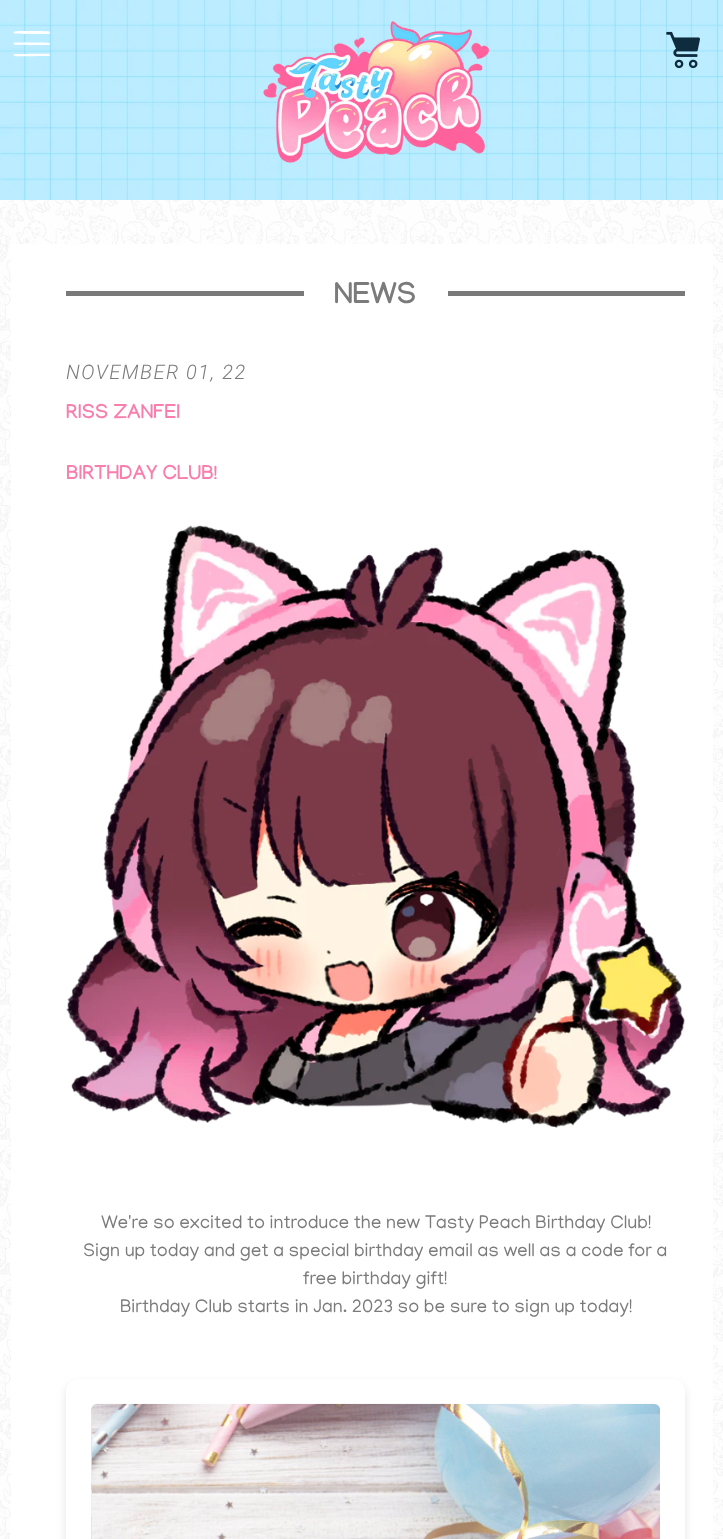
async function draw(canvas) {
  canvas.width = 723;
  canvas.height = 1539;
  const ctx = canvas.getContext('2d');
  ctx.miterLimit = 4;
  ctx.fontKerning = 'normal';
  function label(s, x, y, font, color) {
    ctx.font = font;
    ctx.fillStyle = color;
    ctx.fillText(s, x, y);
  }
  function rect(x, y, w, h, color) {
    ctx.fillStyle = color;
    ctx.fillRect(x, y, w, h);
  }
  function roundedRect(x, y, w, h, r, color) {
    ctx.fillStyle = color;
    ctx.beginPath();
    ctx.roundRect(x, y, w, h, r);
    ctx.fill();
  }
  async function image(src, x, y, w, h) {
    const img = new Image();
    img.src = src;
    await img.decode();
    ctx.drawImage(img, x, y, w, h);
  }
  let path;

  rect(0, 0, 723, 1539, '#fff');
  await image('assets/img1.png', 0, 0, 723, 200);
  await image('assets/img2.png', 263, 21, 227, 142);
  path = new Path2D('M49 56C45 56 15 56.5 14 56C13.5 55.5 13.5 54 14.5 54H20.5C24 54 49 53.5 49.5 54C50.5 55 50 56 49 56ZM49 45C45 45 15 45.5 14 44.5C13.5 44 13.5 43 14.5 42.5H20.5C24 42.5 49 42 49.5 43C50.5 43.5 50 45 49 45ZM49 34C45 34 15 34 14 33.5C13.5 33 13.5 31.5 14.5 31.5L20.5 31C24 31 49 31 49.5 31.5C50.5 32.5 50 34 49 34Z');
  ctx.fill(path);
  await image('assets/img3.png', 666, 31, 34, 38);
  await image('assets/img4.png', 0, 200, 723, 1339);
  rect(11, 244, 702, 1295, '#fff');
  rect(66, 291, 238, 5, '#797979');
  label('NEWS', 334, 303, 'bold 30px Manjari', '#7b7b7b');
  rect(448, 291, 237, 5, '#797979');
  ctx.letterSpacing = '1.5px';
  label('NOVEMBER 01, 22', 66, 379, 'italic 300 20px Roboto', '#7b7b7b');
  ctx.letterSpacing = '0px';
  label('RISS ZANFEI', 66, 418, 'bold 20px Manjari', '#f87ead');
  label('BIRTHDAY CLUB!', 66, 479, 'bold 20px Manjari', '#f87ead');
  await image('assets/img5.png', 66, 525, 619, 603);
  label('We\'re so excited to introduce the new Tasty Peach Birthday Club!', 101, 1228, '18.75px Manjari', '#7b7b7b');
  label('Sign up today and get a special birthday email as well as a code for a', 83, 1256, '18.75px Manjari', '#7b7b7b');
  label('free birthday gift!', 303, 1284, '18.75px Manjari', '#7b7b7b');
  label('Birthday Club starts in Jan. 2023 so be sure to sign up today!', 120, 1312, '18.75px Manjari', '#7b7b7b');
  ctx.fillStyle = '#69717733';
  ctx.filter = 'blur(5px)';
  ctx.beginPath();
  ctx.roundRect(66, 1384, 619, 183, 13);
  ctx.fill();
  ctx.filter = 'none';
  roundedRect(66, 1379, 619, 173, 13, '#fff');
  await image('assets/img6.png', 91, 1403, 569, 136);
}

draw(document.querySelector('canvas'));
